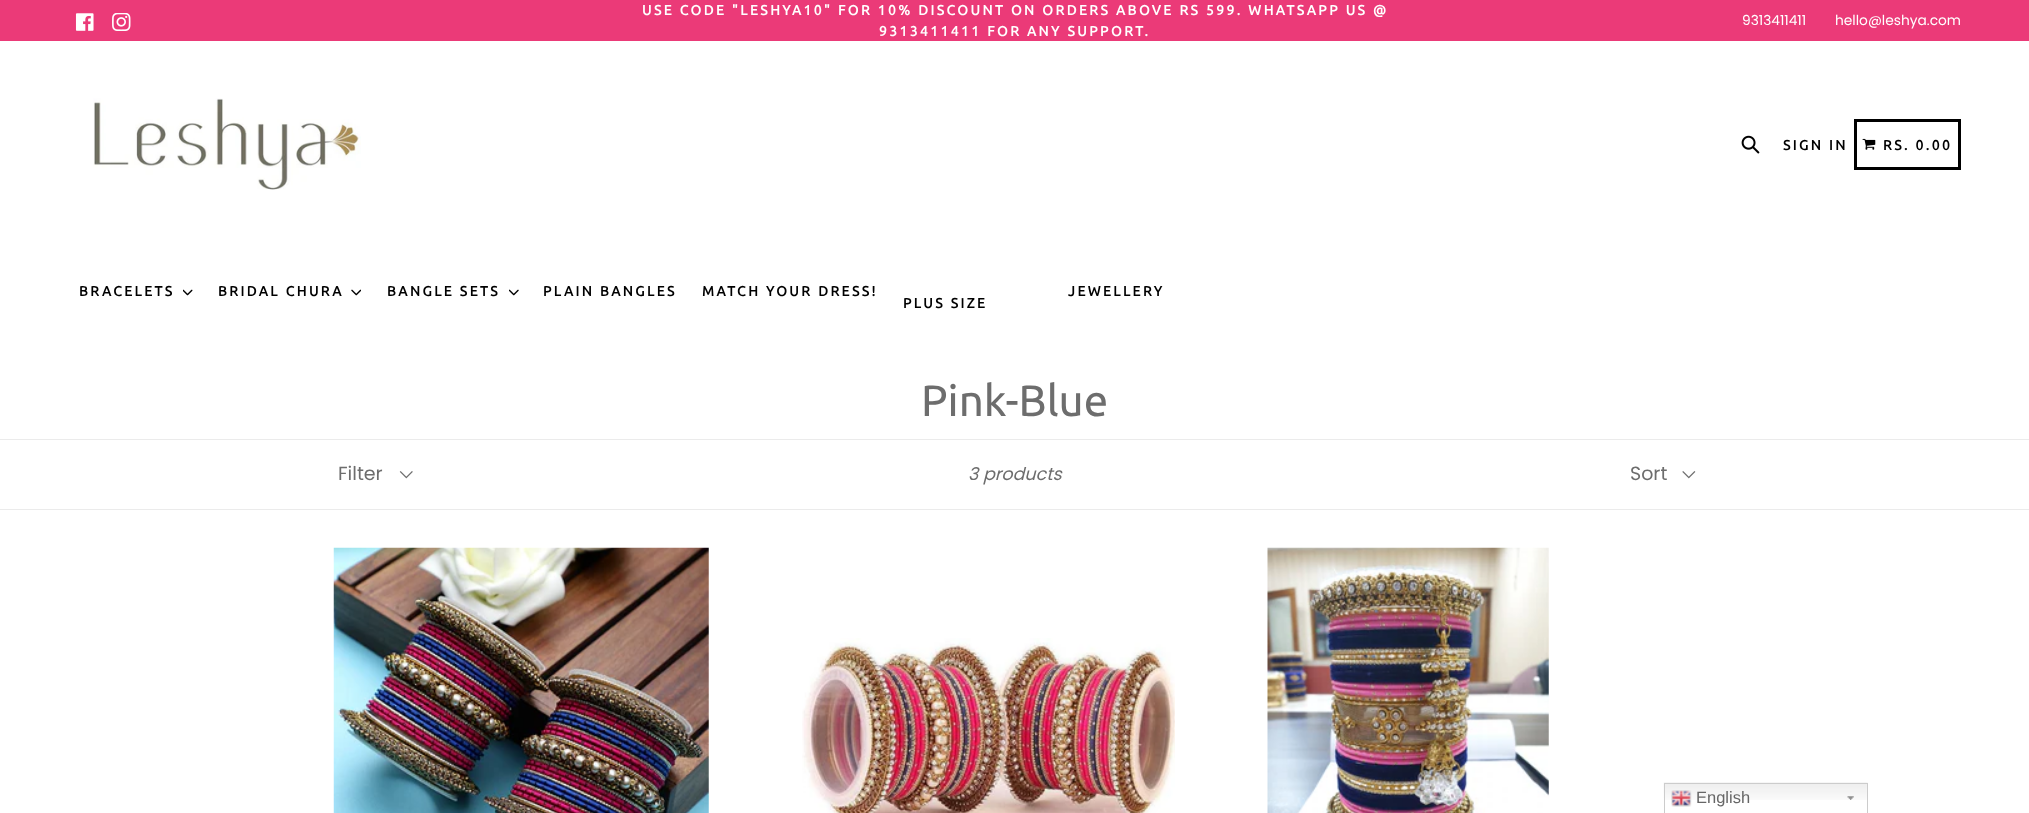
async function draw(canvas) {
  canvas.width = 2029;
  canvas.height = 813;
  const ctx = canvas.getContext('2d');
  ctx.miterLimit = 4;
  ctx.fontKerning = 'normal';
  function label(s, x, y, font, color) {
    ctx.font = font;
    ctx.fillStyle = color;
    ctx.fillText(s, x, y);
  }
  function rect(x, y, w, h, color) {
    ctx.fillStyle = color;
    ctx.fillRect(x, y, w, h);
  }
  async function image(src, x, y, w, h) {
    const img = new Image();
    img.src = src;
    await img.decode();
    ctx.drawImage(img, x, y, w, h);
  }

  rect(0, 0, 2029, 813, '#fff');
  rect(0, 0, 2029, 41, '#eb3a78');
  await image('assets/img1.png', 75, 13, 19, 18);
  await image('assets/img2.png', 112, 13, 19, 18);
  ctx.letterSpacing = '2.5px';
  label('USE CODE "LESHYA10" FOR 10% DISCOUNT ON ORDERS ABOVE RS 599. WHATSAPP US @', 642, 15, 'bold 13.75px Ubuntu', '#fff');
  label('9313411411 FOR ANY SUPPORT.', 879, 36, 'bold 13.75px Ubuntu', '#fff');
  ctx.letterSpacing = '0px';
  label('9313411411', 1742, 25, '13.75px Poppins', '#fff');
  label('hello@leshya.com', 1835, 25, '13.75px Poppins', '#fff');
  await image('assets/img3.png', 93, 98, 268, 92);
  await image('assets/img4.png', 1741, 135, 19, 19);
  ctx.letterSpacing = '2.5px';
  label('SIGN IN', 1783, 150, 'bold 13.75px Ubuntu', '#000');
  ctx.strokeStyle = '#000';
  ctx.lineWidth = 3;
  ctx.strokeRect(1855.5, 120.5, 104, 48);
  await image('assets/img5.png', 1862, 138, 14, 12);
  label('RS. 0.00', 1883, 150, 'bold 13.75px Ubuntu', '#000');
  label('BRACELETS', 79, 296, 'bold 13.75px Ubuntu', '#000');
  await image('assets/img6.png', 183, 289, 10, 7);
  label('BRIDAL CHURA', 218, 296, 'bold 13.75px Ubuntu', '#000');
  await image('assets/img7.png', 351, 289, 10, 7);
  label('BANGLE SETS', 387, 296, 'bold 13.75px Ubuntu', '#000');
  await image('assets/img8.png', 509, 289, 10, 7);
  label('PLAIN BANGLES', 543, 296, 'bold 13.75px Ubuntu', '#000');
  label('MATCH YOUR DRESS!', 702, 296, 'bold 13.75px Ubuntu', '#000');
  label('JEWELLERY', 1068, 296, 'bold 13.75px Ubuntu', '#000');
  label('PLUS SIZE', 903, 308, 'bold 13.75px Ubuntu', '#000');
  ctx.letterSpacing = '0px';
  label('Pink-Blue', 921, 416, '43.75px Ubuntu', '#6d6d6d');
  rect(0, 439, 2029, 1, '#ebebeb');
  rect(0, 509, 2029, 1, '#ebebeb');
  await image('assets/img9.png', 399, 471, 14, 8);
  label('Filter', 338, 480, '19px Poppins', '#6d6d6d');
  label('3 products', 968, 480, 'italic 17.5px Poppins', '#6d6d6d');
  await image('assets/img10.png', 1682, 471, 14, 8);
  label('Sort', 1630, 480, '19px Poppins', '#6d6d6d');
  await image('assets/img11.png', 333, 547, 376, 266);
  await image('assets/img12.png', 802, 638, 373, 175);
  await image('assets/img13.png', 1267, 547, 282, 266);
  await image('assets/img14.png', 1663, 782, 205, 18);
  await image('assets/img15.png', 1847, 796, 7, 4);
  ctx.strokeStyle = '#ccc';
  ctx.lineWidth = 1;
  ctx.strokeRect(1664.5, 783.5, 203, 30);
  await image('assets/img16.png', 1671, 790, 21, 17);
  label('English', 1696, 803, '16.5px Liberation Sans', '#666');
}

draw(document.querySelector('canvas'));
